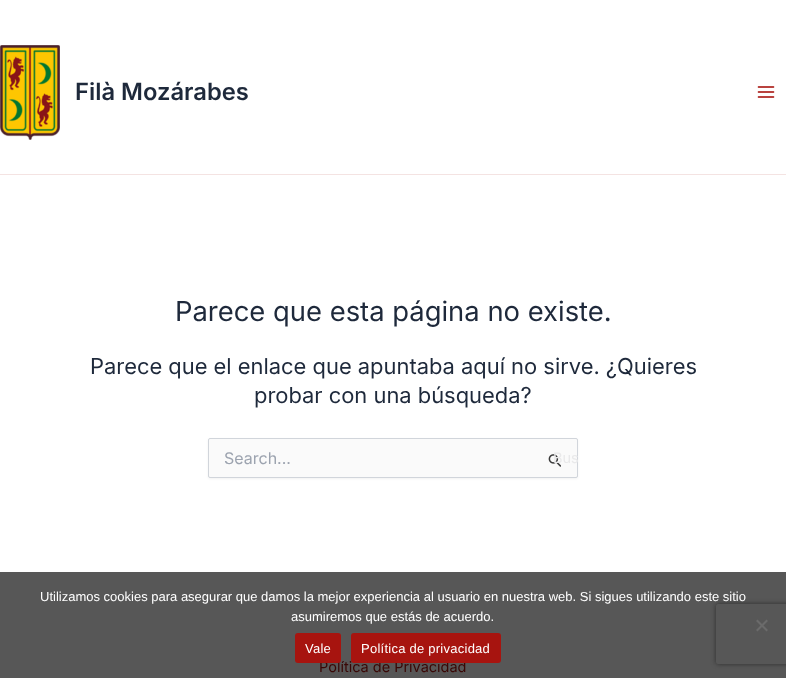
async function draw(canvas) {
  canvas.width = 786;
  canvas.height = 678;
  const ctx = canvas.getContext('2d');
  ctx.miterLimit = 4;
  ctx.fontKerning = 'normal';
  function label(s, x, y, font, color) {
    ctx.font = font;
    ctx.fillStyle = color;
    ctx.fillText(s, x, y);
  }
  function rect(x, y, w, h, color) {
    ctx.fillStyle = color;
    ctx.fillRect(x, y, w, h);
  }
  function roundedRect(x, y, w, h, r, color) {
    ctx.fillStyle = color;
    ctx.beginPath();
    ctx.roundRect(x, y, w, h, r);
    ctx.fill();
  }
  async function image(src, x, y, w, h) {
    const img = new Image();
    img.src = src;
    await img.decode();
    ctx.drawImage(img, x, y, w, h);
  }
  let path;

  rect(0, 0, 786, 678, '#fff');
  rect(0, 572, 786, 106, '#575757');
  rect(0, 174, 786, 1, '#f4e3e2');
  await image('assets/img1.png', 0, 45, 60, 95);
  label('Filà Mozárabes', 75, 100, '600 23.75px Inter', '#1e293b');
  await image('assets/img2.png', 757, 86, 18, 12);
  label('Parece que esta página no existe.', 175, 321, '27.4px Inter', '#1e293b');
  label('Parece que el enlace que apuntaba aquí no sirve. ¿Quieres', 90, 374, '21.9px Inter', '#1e293b');
  label('probar con una búsqueda?', 254, 403, '21.9px Inter', '#1e293b');
  ctx.fillStyle = '#0000000d';
  ctx.filter = 'blur(1px)';
  ctx.beginPath();
  ctx.roundRect(208, 439, 370, 40, 2);
  ctx.fill();
  ctx.filter = 'none';
  ctx.fillStyle = '#fafafa';
  ctx.beginPath();
  ctx.roundRect(208.5, 438.5, 369, 39, 1.5);
  ctx.fill();
  ctx.strokeStyle = '#d1d5db';
  ctx.stroke();
  label('Search...', 224, 464, '16px Inter', '#9ca3af');
  await image('assets/img3.png', 548, 454, 13, 13);
  label('Bus', 553, 463, '14.5px Inter', '#e9e9ea');
  label('Política de Privacidad', 319, 672, '14.5px Inter', '#390705');
  ctx.save();
  path = new Path2D('M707 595H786V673H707ZM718 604H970C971 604 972 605 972 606V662C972 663 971 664 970 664H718C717 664 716 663 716 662V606C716 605 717 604 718 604Z');
  ctx.clip(path, 'evenodd');
  ctx.fillStyle = '#2c2c2c';
  ctx.filter = 'blur(2.5px)';
  ctx.beginPath();
  ctx.roundRect(716, 604, 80, 60, 2);
  ctx.fill();
  ctx.filter = 'none';
  ctx.restore();
  label('Utilizamos cookies para asegurar que damos la mejor experiencia al usuario en nuestra web. Si sigues utilizando este sitio', 40, 601, '13px Liberation Sans', '#fff');
  label('asumiremos que estás de acuerdo.', 291, 621, '13px Liberation Sans', '#fff');
  ctx.fillStyle = '#6b6b6b';
  path = new Path2D('M766.5 619.5L768 621L757.5 631.5L756 630Z');
  ctx.fill(path);
  path = new Path2D('M756 621L757.5 619.5L768 630L766.5 631.5Z');
  ctx.fill(path);
  roundedRect(295, 633, 46, 30, 3, '#a7140f');
  ctx.letterSpacing = '0.25px';
  label('Vale', 305, 653, '13px Liberation Sans', '#fff');
  roundedRect(351, 633, 150, 30, 3, '#a7140f');
  label('Política de privacidad', 361, 653, '13px Liberation Sans', '#fff');
}

draw(document.querySelector('canvas'));
